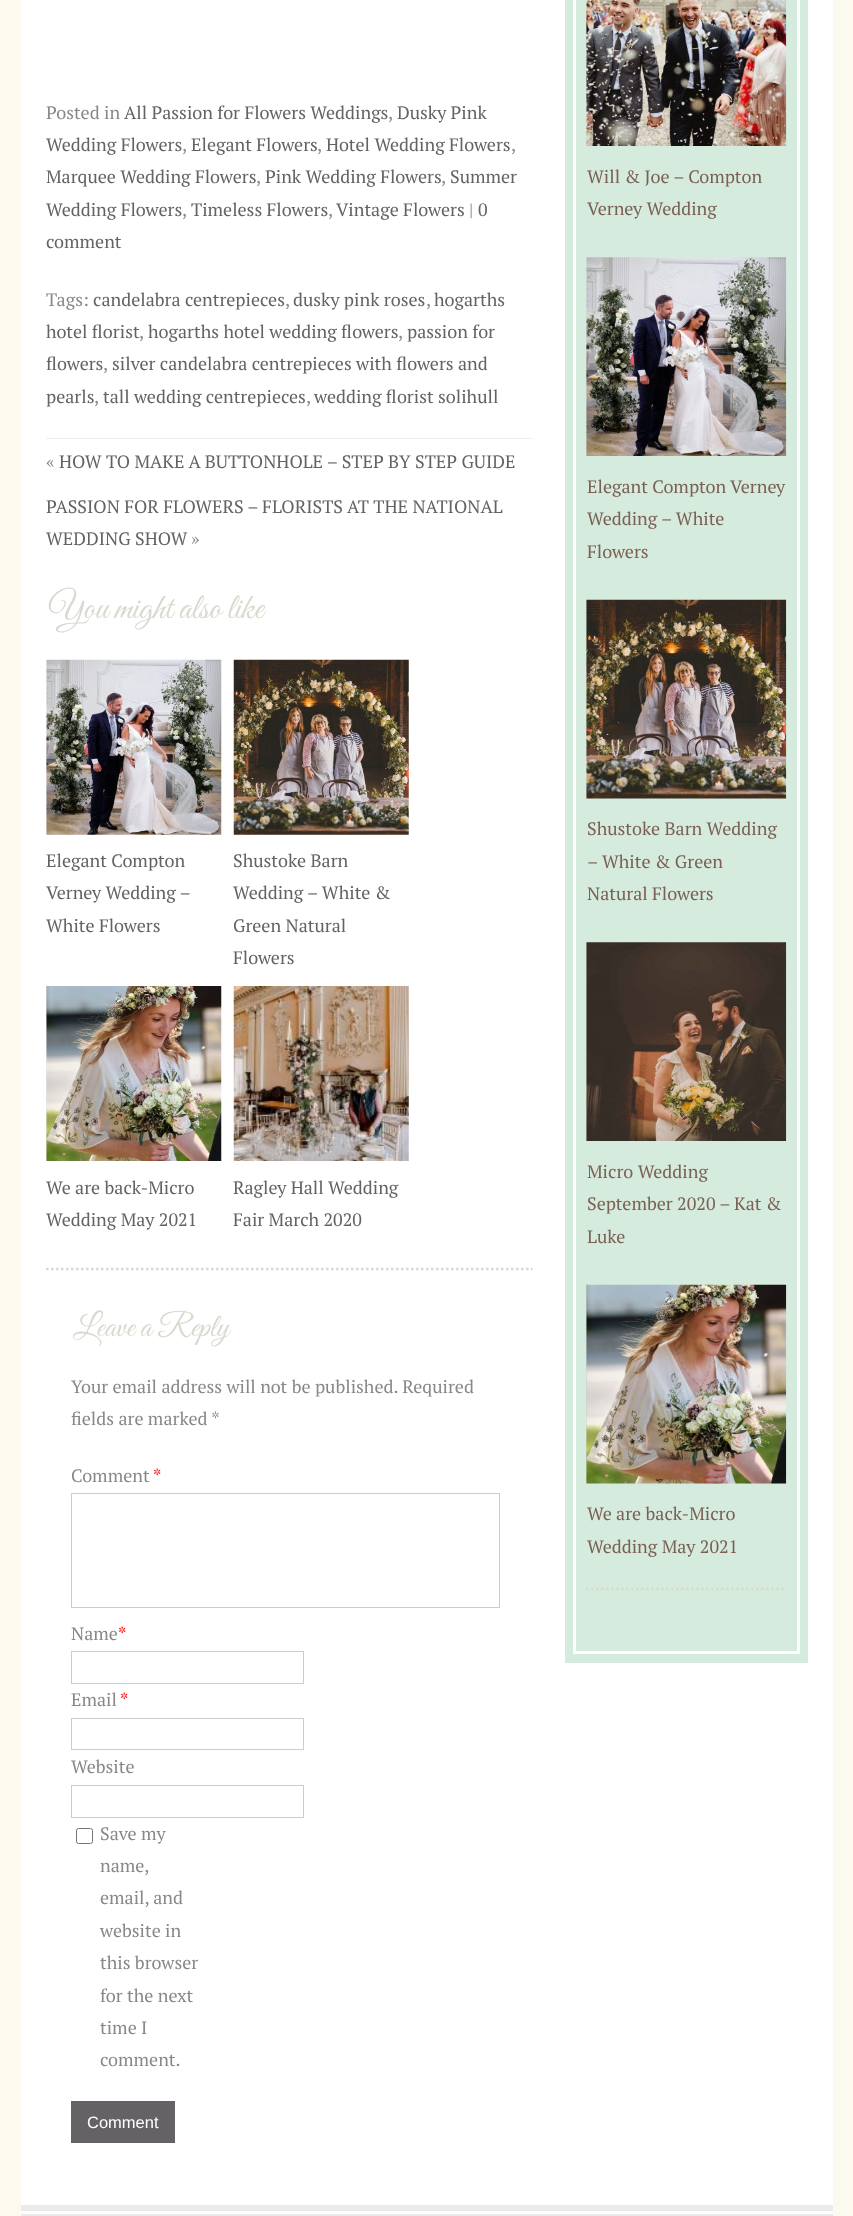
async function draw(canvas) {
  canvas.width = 853;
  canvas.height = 2216;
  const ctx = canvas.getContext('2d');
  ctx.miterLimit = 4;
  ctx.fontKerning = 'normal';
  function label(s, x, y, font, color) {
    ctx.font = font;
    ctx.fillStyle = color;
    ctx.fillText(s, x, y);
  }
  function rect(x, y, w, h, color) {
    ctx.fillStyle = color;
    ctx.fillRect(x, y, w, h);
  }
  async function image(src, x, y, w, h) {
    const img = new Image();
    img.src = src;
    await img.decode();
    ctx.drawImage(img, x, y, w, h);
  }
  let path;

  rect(0, 0, 853, 2216, '#fcfaef');
  rect(21, 0, 812, 2205, '#fff');
  path = new Path2D('M46 1269H532.5');
  ctx.strokeStyle = '#d9d9cf';
  ctx.lineWidth = 2.5;
  ctx.setLineDash([2.5, 2.5]);
  ctx.stroke(path);
  label('Posted in', 46, 119, '18px PT Serif', '#888');
  label('All Passion for Flowers Weddings', 124, 119, '18px PT Serif', '#646265');
  label(',', 388, 119, '18px PT Serif', '#888');
  label('Dusky Pink', 397, 119, '18px PT Serif', '#646265');
  label('Wedding Flowers', 46, 151, '18px PT Serif', '#646265');
  label(',', 182, 151, '18px PT Serif', '#888');
  label('Elegant Flowers', 191, 151, '18px PT Serif', '#646265');
  label(',', 317, 151, '18px PT Serif', '#888');
  label('Hotel Wedding Flowers', 326, 151, '18px PT Serif', '#646265');
  label(',', 511, 151, '18px PT Serif', '#888');
  label('Marquee Wedding Flowers', 46, 183, '18px PT Serif', '#646265');
  label(',', 256, 183, '18px PT Serif', '#888');
  label('Pink Wedding Flowers', 265, 183, '18px PT Serif', '#646265');
  label(',', 441, 183, '18px PT Serif', '#888');
  label('Summer', 450, 183, '18px PT Serif', '#646265');
  label('Wedding Flowers', 46, 216, '18px PT Serif', '#646265');
  label(',', 182, 216, '18px PT Serif', '#888');
  label('Timeless Flowers', 191, 216, '18px PT Serif', '#646265');
  label(',', 328, 216, '18px PT Serif', '#888');
  label('Vintage Flowers', 336, 216, '18px PT Serif', '#646265');
  label('|', 469, 216, '18px PT Serif', '#888');
  label('0', 478, 216, '18px PT Serif', '#646265');
  label('comment', 46, 248, '18px PT Serif', '#646265');
  label('Tags:', 46, 306, '18px PT Serif', '#888');
  label('candelabra centrepieces', 93, 306, '18px PT Serif', '#646265');
  label(',', 285, 306, '18px PT Serif', '#888');
  label('dusky pink roses', 293, 306, '18px PT Serif', '#646265');
  label(',', 426, 306, '18px PT Serif', '#888');
  label('hogarths', 434, 306, '18px PT Serif', '#646265');
  label('hotel florist', 46, 338, '18px PT Serif', '#646265');
  label(',', 139, 338, '18px PT Serif', '#888');
  label('hogarths hotel wedding flowers', 148, 338, '18px PT Serif', '#646265');
  label(',', 398, 338, '18px PT Serif', '#888');
  label('passion for', 407, 338, '18px PT Serif', '#646265');
  label('flowers', 46, 370, '18px PT Serif', '#646265');
  label(',', 103, 370, '18px PT Serif', '#888');
  label('silver candelabra centrepieces with flowers and', 112, 370, '18px PT Serif', '#646265');
  label('pearls', 46, 403, '18px PT Serif', '#646265');
  label(',', 94, 403, '18px PT Serif', '#888');
  label('tall wedding centrepieces', 103, 403, '18px PT Serif', '#646265');
  label(',', 306, 403, '18px PT Serif', '#888');
  label('wedding florist solihull', 314, 403, '18px PT Serif', '#646265');
  rect(46, 438, 487, 1, '#eee');
  label('«', 46, 468, '18px PT Serif', '#888');
  label('HOW TO MAKE A BUTTONHOLE – STEP BY STEP GUIDE', 59, 468, '18px PT Serif', '#646265');
  label('PASSION FOR FLOWERS – FLORISTS AT THE NATIONAL', 46, 513, '18px PT Serif', '#646265');
  label('WEDDING SHOW', 46, 545, '18px PT Serif', '#646265');
  label('»', 191, 545, '18px PT Serif', '#888');
  label('You might also like', 48, 618, '36px Great Vibes', '#d9d9cf');
  await image('assets/img1.png', 46, 659, 176, 176);
  label('Elegant Compton', 46, 867, '18px PT Serif', '#646265');
  label('Verney Wedding –', 46, 899, '18px PT Serif', '#646265');
  label('White Flowers', 46, 932, '18px PT Serif', '#646265');
  await image('assets/img2.png', 233, 659, 176, 176);
  label('Shustoke Barn', 233, 867, '18px PT Serif', '#646265');
  label('Wedding – White &', 233, 899, '18px PT Serif', '#646265');
  label('Green Natural', 233, 932, '18px PT Serif', '#646265');
  label('Flowers', 233, 964, '18px PT Serif', '#646265');
  await image('assets/img3.png', 46, 986, 176, 175);
  label('We are back-Micro', 46, 1194, '18px PT Serif', '#646265');
  label('Wedding May 2021', 46, 1226, '18px PT Serif', '#646265');
  await image('assets/img4.png', 233, 986, 176, 175);
  label('Ragley Hall Wedding', 233, 1194, '18px PT Serif', '#646265');
  label('Fair March 2020', 233, 1226, '18px PT Serif', '#646265');
  label('Leave a Reply', 73, 1336, '32.5px Great Vibes', '#d9d9cf');
  label('Your email address will not be published. Required', 71, 1393, '18px PT Serif', '#888');
  label('fields are marked *', 71, 1425, '18px PT Serif', '#888');
  label('Comment', 71, 1482, '18px PT Serif', '#888');
  label('*', 153, 1482, '18px PT Serif', '#f00');
  ctx.strokeStyle = '#ccc';
  ctx.lineWidth = 1;
  ctx.setLineDash([]);
  ctx.strokeRect(71.5, 1493.5, 428, 114);
  label('Name', 71, 1640, '18px PT Serif', '#888');
  label('*', 118, 1640, '18px PT Serif', '#f00');
  ctx.strokeRect(71.5, 1651.5, 232, 32);
  label('Email', 71, 1706, '18px PT Serif', '#888');
  label('*', 120, 1706, '18px PT Serif', '#f00');
  ctx.strokeRect(71.5, 1718.5, 232, 31);
  label('Website', 71, 1773, '18px PT Serif', '#888');
  ctx.strokeRect(71.5, 1785.5, 232, 32);
  ctx.beginPath();
  ctx.roundRect(76.5, 1828.5, 16, 15, 2);
  ctx.strokeStyle = '#767676';
  ctx.stroke();
  label('Save my', 100, 1840, '18px PT Serif', '#888');
  label('name,', 100, 1872, '18px PT Serif', '#888');
  label('email, and', 100, 1904, '18px PT Serif', '#888');
  label('website in', 100, 1937, '18px PT Serif', '#888');
  label('this browser', 100, 1969, '18px PT Serif', '#888');
  label('for the next', 100, 2002, '18px PT Serif', '#888');
  label('time I', 100, 2034, '18px PT Serif', '#888');
  label('comment.', 100, 2066, '18px PT Serif', '#888');
  rect(71, 2101, 104, 42, '#646265');
  label('Comment', 87, 2128, '16.5px Liberation Sans', '#fff');
  rect(565, 0, 243, 1663, '#d5ebde');
  ctx.strokeStyle = '#fff';
  ctx.lineWidth = 3;
  ctx.strokeRect(574.5, -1.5, 224, 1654);
  path = new Path2D('M586 1589H786');
  ctx.strokeStyle = '#d9d9cf';
  ctx.lineWidth = 2.5;
  ctx.setLineDash([2.5, 2.5]);
  ctx.stroke(path);
  await image('assets/img5.png', 586, 0, 201, 146);
  label('Will & Joe – Compton', 587, 183, '18px PT Serif', '#7b6054');
  label('Verney Wedding', 587, 215, '18px PT Serif', '#7b6054');
  await image('assets/img6.png', 586, 257, 201, 199);
  label('Elegant Compton Verney', 587, 493, '18px PT Serif', '#7b6054');
  label('Wedding – White', 587, 525, '18px PT Serif', '#7b6054');
  label('Flowers', 587, 558, '18px PT Serif', '#7b6054');
  await image('assets/img7.png', 586, 599, 201, 200);
  label('Shustoke Barn Wedding', 587, 835, '18px PT Serif', '#7b6054');
  label('– White & Green', 587, 868, '18px PT Serif', '#7b6054');
  label('Natural Flowers', 587, 900, '18px PT Serif', '#7b6054');
  await image('assets/img8.png', 586, 942, 201, 199);
  label('Micro Wedding', 587, 1178, '18px PT Serif', '#7b6054');
  label('September 2020 – Kat &', 587, 1210, '18px PT Serif', '#7b6054');
  label('Luke', 587, 1243, '18px PT Serif', '#7b6054');
  await image('assets/img9.png', 586, 1284, 201, 200);
  label('We are back-Micro', 587, 1520, '18px PT Serif', '#7b6054');
  label('Wedding May 2021', 587, 1553, '18px PT Serif', '#7b6054');
  rect(21, 2205, 812, 11, '#eaeaea');
  rect(21, 2211, 812, 3, '#fff');
}

draw(document.querySelector('canvas'));
